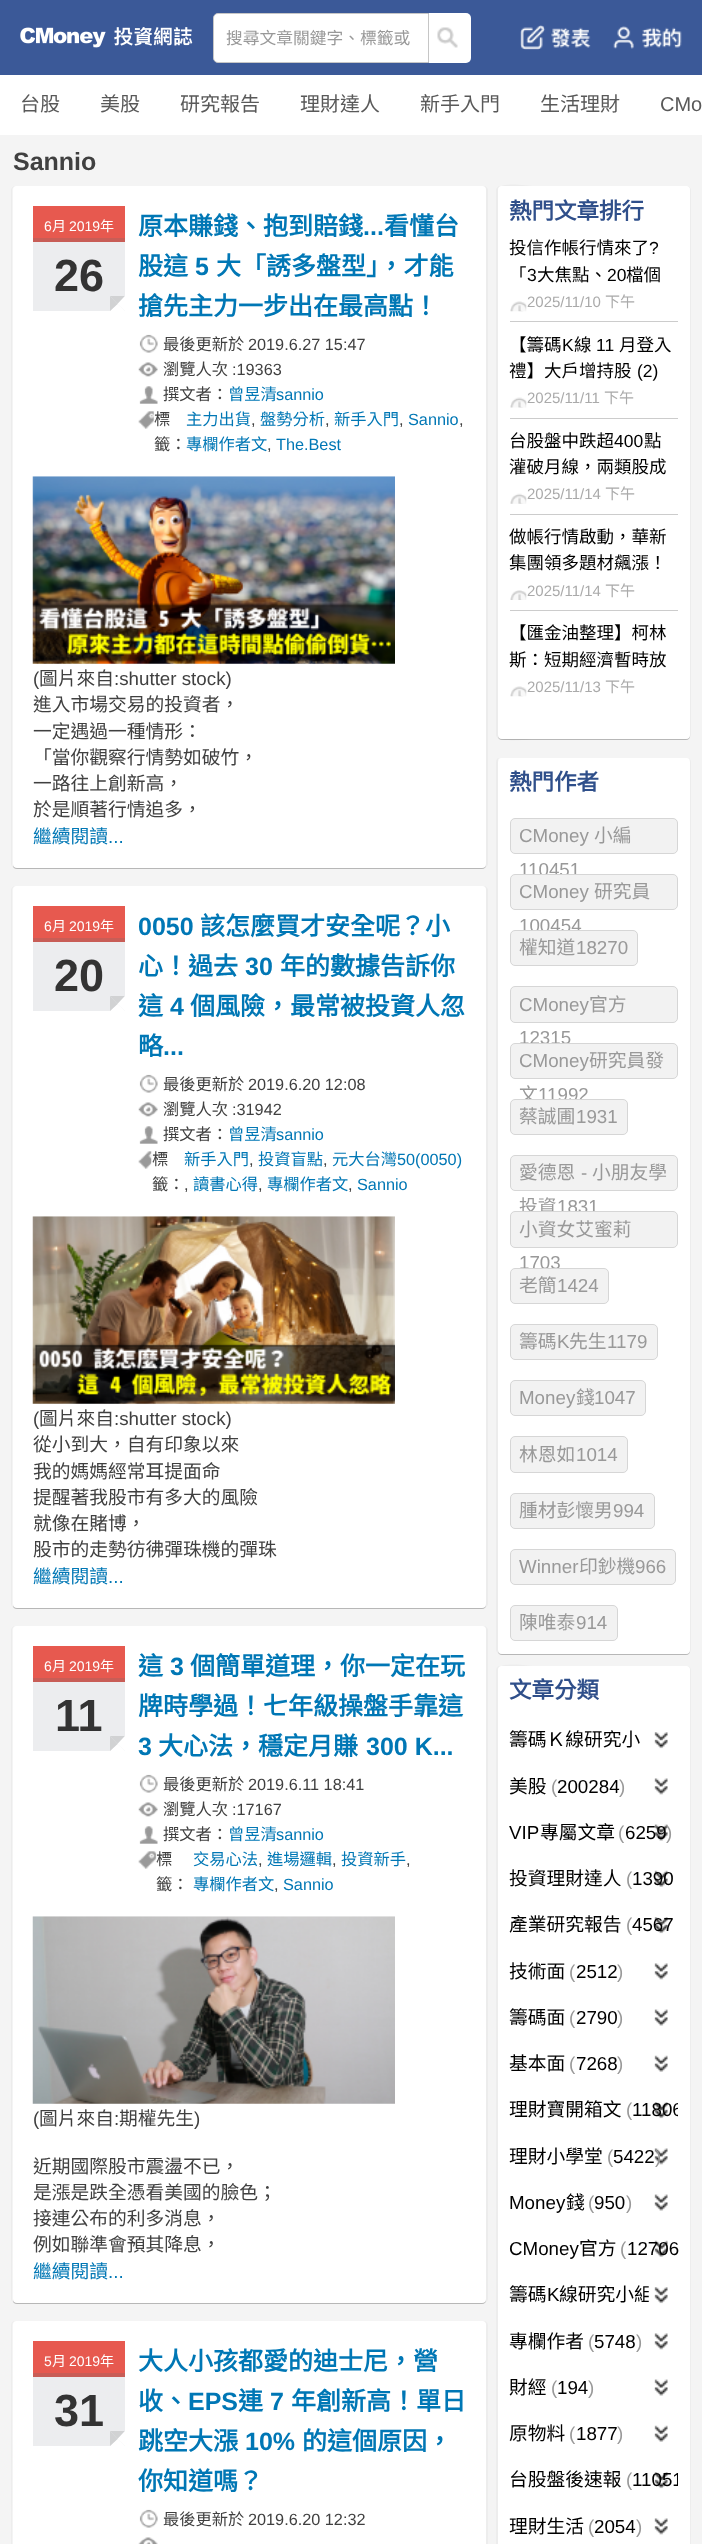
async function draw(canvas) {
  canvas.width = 702;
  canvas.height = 2544;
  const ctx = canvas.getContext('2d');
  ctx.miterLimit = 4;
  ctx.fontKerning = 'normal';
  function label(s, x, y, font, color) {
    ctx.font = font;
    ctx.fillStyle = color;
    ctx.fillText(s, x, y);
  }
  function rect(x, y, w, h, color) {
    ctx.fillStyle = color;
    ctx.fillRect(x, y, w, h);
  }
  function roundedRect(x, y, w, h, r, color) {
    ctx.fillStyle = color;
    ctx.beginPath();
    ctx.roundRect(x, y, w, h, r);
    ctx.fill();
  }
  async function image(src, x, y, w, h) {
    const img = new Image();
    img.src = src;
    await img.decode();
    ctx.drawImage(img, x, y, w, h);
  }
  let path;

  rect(0, 0, 702, 2544, '#f4f4f4');
  rect(0, 0, 702, 75, '#3b5998');
  await image('assets/img1.png', 20, 27, 173, 21);
  ctx.fillStyle = '#fff';
  ctx.beginPath();
  ctx.roundRect(213.5, 13.5, 215, 49, [4.5, 0, 0, 4.5]);
  ctx.fill();
  ctx.strokeStyle = '#c6c6c6';
  ctx.stroke();
  label('搜尋文章關鍵字、標籤或', 226, 44, '16.75px Noto Sans CJK TC', '#999');
  ctx.fillStyle = '#fff';
  ctx.beginPath();
  ctx.roundRect(429, 13, 42, 50, [0, 5, 5, 0]);
  ctx.fill();
  await image('assets/img2.png', 437, 27, 21, 21);
  await image('assets/img3.png', 520, 25, 71, 25);
  await image('assets/img4.png', 613, 26, 69, 23);
  rect(0, 75, 702, 60, '#fff');
  label('台股', 20, 111, '20px Noto Sans CJK TC', '#595959');
  label('美股', 100, 111, '20px Noto Sans CJK TC', '#595959');
  label('研究報告', 180, 111, '20px Noto Sans CJK TC', '#595959');
  label('理財達人', 300, 111, '20px Noto Sans CJK TC', '#595959');
  label('新手入門', 420, 111, '20px Noto Sans CJK TC', '#595959');
  label('生活理財', 540, 111, '20px Noto Sans CJK TC', '#595959');
  label('CMo', 660, 111, '20px Liberation Sans', '#595959');
  label('Sannio', 13, 170, 'bold 25px Liberation Sans', '#404040');
  ctx.fillStyle = '#d7d7d7';
  path = new Path2D('M13 866C13 868 15 869 17 869H482C484 869 486 867 486 865C486 866 485 867 484 867H15Z');
  ctx.fill(path);
  ctx.fillStyle = '#00000008';
  path = new Path2D('M18 186H17H482C485 186 486 188 486 190V864C486 866 485 868 482 868L16 867L18 868H484C486 868 488 866 488 864V190C488 188 486 186 484 186Z');
  ctx.fill(path);
  path = new Path2D('M15 186C13 186 11 188 11 190V864C11 866 13 868 15 868H481L483 867L16 868C14 868 12 866 12 864V190C12 188 14 186 16 186H482H481Z');
  ctx.fill(path);
  ctx.fillStyle = '#00000026';
  ctx.filter = 'blur(0.5px)';
  ctx.beginPath();
  ctx.roundRect(13, 188, 473, 681, 4);
  ctx.fill();
  ctx.filter = 'none';
  roundedRect(13, 186, 473, 682, 4, '#fff');
  rect(33, 206, 92, 32, '#e7594f');
  label('6', 44, 231, '14px Liberation Sans', '#fff');
  label('月', 52, 231, '14px Noto Sans CJK TC', '#fff');
  label('2019', 69, 231, '14px Liberation Sans', '#fff');
  label('年', 100, 231, '14px Noto Sans CJK TC', '#fff');
  rect(33, 242, 92, 69, '#ecedef');
  rect(33, 238, 92, 4, '#c85d56');
  label('26', 54, 291, 'bold 45px Liberation Sans', '#333');
  ctx.fillStyle = '#d1d2d3';
  path = new Path2D('M110 296H125L117.5 304Z');
  ctx.fill(path);
  ctx.fillStyle = '#fff';
  path = new Path2D('M125 296V311L117.5 304Z');
  ctx.fill(path);
  path = new Path2D('M125 311H110L117.5 304Z');
  ctx.fill(path);
  ctx.fillStyle = '#d1d2d3';
  path = new Path2D('M110 311V296L117.5 304Z');
  ctx.fill(path);
  label('原本賺錢、抱到賠錢', 138, 235, 'bold 25px Noto Sans CJK TC', '#0077b5');
  label('...', 363, 235, 'bold 25px Liberation Sans', '#0077b5');
  label('看懂台', 384, 235, 'bold 25px Noto Sans CJK TC', '#0077b5');
  label('股這', 138, 275, 'bold 25px Noto Sans CJK TC', '#0077b5');
  label('5', 195, 275, 'bold 25px Liberation Sans', '#0077b5');
  label('大「誘多盤型」，才能', 216, 275, 'bold 25px Noto Sans CJK TC', '#0077b5');
  label('搶先主力一步出在最高點！', 138, 315, 'bold 25px Noto Sans CJK TC', '#0077b5');
  await image('assets/img5.png', 139, 334, 19, 19);
  label('最後更新於', 163, 350, '16.25px Noto Sans CJK TC', '#404040');
  label('2019.6.27 15:47', 248, 350, '16.25px Liberation Sans', '#404040');
  await image('assets/img6.png', 138, 362, 20, 15);
  label('瀏覽人次', 163, 375, '16.25px Noto Sans CJK TC', '#404040');
  label(':19363', 232, 375, '16.25px Liberation Sans', '#404040');
  await image('assets/img7.png', 139, 386, 19, 18);
  label('撰文者：', 163, 400, '16.25px Noto Sans CJK TC', '#404040');
  label('曾昱清', 228, 400, '16.25px Noto Sans CJK TC', '#0077b5');
  label('sannio', 276, 400, '16.25px Liberation Sans', '#0077b5');
  await image('assets/img8.png', 138, 411, 16, 18);
  label('標', 154, 425, '16.25px Noto Sans CJK TC', '#404040');
  label('主力出貨', 186, 425, '16.25px Noto Sans CJK TC', '#0077b5');
  label(',', 251, 425, '16.25px Liberation Sans', '#404040');
  label('盤勢分析', 260, 425, '16.25px Noto Sans CJK TC', '#0077b5');
  label(',', 325, 425, '16.25px Liberation Sans', '#404040');
  label('新手入門', 334, 425, '16.25px Noto Sans CJK TC', '#0077b5');
  label(',', 399, 425, '16.25px Liberation Sans', '#404040');
  label('Sannio', 408, 425, '16.25px Liberation Sans', '#0077b5');
  label(',', 459, 425, '16.25px Liberation Sans', '#404040');
  label('專欄作者文', 186, 450, '16.25px Noto Sans CJK TC', '#0077b5');
  label(',', 267, 450, '16.25px Liberation Sans', '#404040');
  label('The.Best', 276, 450, '16.25px Liberation Sans', '#0077b5');
  label('籤：', 154, 450, '16.25px Noto Sans CJK TC', '#404040');
  await image('assets/img9.png', 32, 476, 363, 188);
  label('(', 33, 685, '18.75px Liberation Sans', '#404040');
  label('圖片來自', 39, 685, '18.75px Noto Sans CJK TC', '#404040');
  label(':shutter stock)', 114, 685, '18.75px Liberation Sans', '#404040');
  label('進入市場交易的投資者，', 33, 711, '18.75px Noto Sans CJK TC', '#404040');
  label('一定遇過一種情形：', 33, 738, '18.75px Noto Sans CJK TC', '#404040');
  label('「當你觀察行情勢如破竹，', 33, 764, '18.75px Noto Sans CJK TC', '#404040');
  label('一路往上創新高，', 33, 790, '18.75px Noto Sans CJK TC', '#404040');
  label('於是順著行情追多，', 33, 816, '18.75px Noto Sans CJK TC', '#404040');
  label('繼續閱讀', 33, 843, '18.75px Noto Sans CJK TC', '#0077b5');
  label('...', 108, 843, '18.75px Liberation Sans', '#0077b5');
  ctx.fillStyle = '#d7d7d7';
  path = new Path2D('M13 1606C13 1608 15 1609 17 1609H482C484 1609 486 1607 486 1605C486 1606 485 1607 484 1607H15Z');
  ctx.fill(path);
  ctx.fillStyle = '#00000008';
  path = new Path2D('M18 886H17H482C485 886 486 888 486 890V1604C486 1606 485 1608 482 1608L16 1607L18 1608H484C486 1608 488 1606 488 1604V890C488 888 486 886 484 886Z');
  ctx.fill(path);
  path = new Path2D('M15 886C13 886 11 888 11 890V1604C11 1606 13 1608 15 1608H481L483 1607L16 1608C14 1608 12 1606 12 1604V890C12 888 14 886 16 886H482H481Z');
  ctx.fill(path);
  ctx.fillStyle = '#00000026';
  ctx.filter = 'blur(0.5px)';
  ctx.beginPath();
  ctx.roundRect(13, 888, 473, 721, 4);
  ctx.fill();
  ctx.filter = 'none';
  roundedRect(13, 886, 473, 722, 4, '#fff');
  rect(33, 906, 92, 32, '#e7594f');
  label('6', 44, 931, '14px Liberation Sans', '#fff');
  label('月', 52, 931, '14px Noto Sans CJK TC', '#fff');
  label('2019', 69, 931, '14px Liberation Sans', '#fff');
  label('年', 100, 931, '14px Noto Sans CJK TC', '#fff');
  rect(33, 942, 92, 69, '#ecedef');
  rect(33, 938, 92, 4, '#c85d56');
  label('20', 54, 991, 'bold 45px Liberation Sans', '#333');
  ctx.fillStyle = '#d1d2d3';
  path = new Path2D('M110 996H125L117.5 1004Z');
  ctx.fill(path);
  ctx.fillStyle = '#fff';
  path = new Path2D('M125 996V1011L117.5 1004Z');
  ctx.fill(path);
  path = new Path2D('M125 1011H110L117.5 1004Z');
  ctx.fill(path);
  ctx.fillStyle = '#d1d2d3';
  path = new Path2D('M110 1011V996L117.5 1004Z');
  ctx.fill(path);
  label('0050', 138, 935, 'bold 25px Liberation Sans', '#0077b5');
  label('該怎麼買才安全呢？小', 200, 935, 'bold 25px Noto Sans CJK TC', '#0077b5');
  label('心！過去', 138, 975, 'bold 25px Noto Sans CJK TC', '#0077b5');
  label('30', 245, 975, 'bold 25px Liberation Sans', '#0077b5');
  label('年的數據告訴你', 280, 975, 'bold 25px Noto Sans CJK TC', '#0077b5');
  label('這', 138, 1015, 'bold 25px Noto Sans CJK TC', '#0077b5');
  label('4', 170, 1015, 'bold 25px Liberation Sans', '#0077b5');
  label('個風險，最常被投資人忽', 190, 1015, 'bold 25px Noto Sans CJK TC', '#0077b5');
  label('略', 138, 1055, 'bold 25px Noto Sans CJK TC', '#0077b5');
  label('...', 163, 1055, 'bold 25px Liberation Sans', '#0077b5');
  await image('assets/img5.png', 139, 1074, 19, 19);
  label('最後更新於', 163, 1090, '16.25px Noto Sans CJK TC', '#404040');
  label('2019.6.20 12:08', 248, 1090, '16.25px Liberation Sans', '#404040');
  await image('assets/img6.png', 138, 1102, 20, 15);
  label('瀏覽人次', 163, 1115, '16.25px Noto Sans CJK TC', '#404040');
  label(':31942', 232, 1115, '16.25px Liberation Sans', '#404040');
  await image('assets/img7.png', 139, 1126, 19, 18);
  label('撰文者：', 163, 1140, '16.25px Noto Sans CJK TC', '#404040');
  label('曾昱清', 228, 1140, '16.25px Noto Sans CJK TC', '#0077b5');
  label('sannio', 276, 1140, '16.25px Liberation Sans', '#0077b5');
  await image('assets/img10.png', 138, 1151, 14, 18);
  label('標', 152, 1165, '16.25px Noto Sans CJK TC', '#404040');
  label('新手入門', 184, 1165, '16.25px Noto Sans CJK TC', '#0077b5');
  label(',', 249, 1165, '16.25px Liberation Sans', '#404040');
  label('投資盲點', 258, 1165, '16.25px Noto Sans CJK TC', '#0077b5');
  label(',', 323, 1165, '16.25px Liberation Sans', '#404040');
  label('元大台灣', 332, 1165, '16.25px Noto Sans CJK TC', '#0077b5');
  label('50(0050)', 397, 1165, '16.25px Liberation Sans', '#0077b5');
  label(',', 184, 1190, '16.25px Liberation Sans', '#404040');
  label('讀書心得', 193, 1190, '16.25px Noto Sans CJK TC', '#0077b5');
  label(',', 258, 1190, '16.25px Liberation Sans', '#404040');
  label('專欄作者文', 267, 1190, '16.25px Noto Sans CJK TC', '#0077b5');
  label(',', 348, 1190, '16.25px Liberation Sans', '#404040');
  label('Sannio', 357, 1190, '16.25px Liberation Sans', '#0077b5');
  label('籤：', 152, 1190, '16.25px Noto Sans CJK TC', '#404040');
  await image('assets/img11.png', 32, 1216, 363, 188);
  label('(', 33, 1425, '18.75px Liberation Sans', '#404040');
  label('圖片來自', 39, 1425, '18.75px Noto Sans CJK TC', '#404040');
  label(':shutter stock)', 114, 1425, '18.75px Liberation Sans', '#404040');
  label('從小到大，自有印象以來', 33, 1451, '18.75px Noto Sans CJK TC', '#404040');
  label('我的媽媽經常耳提面命', 33, 1478, '18.75px Noto Sans CJK TC', '#404040');
  label('提醒著我股市有多大的風險', 33, 1504, '18.75px Noto Sans CJK TC', '#404040');
  label('就像在賭博，', 33, 1530, '18.75px Noto Sans CJK TC', '#404040');
  label('股市的走勢彷彿彈珠機的彈珠', 33, 1556, '18.75px Noto Sans CJK TC', '#404040');
  label('繼續閱讀', 33, 1583, '18.75px Noto Sans CJK TC', '#0077b5');
  label('...', 108, 1583, '18.75px Liberation Sans', '#0077b5');
  ctx.fillStyle = '#d7d7d7';
  path = new Path2D('M13 2301C13 2303 15 2304 17 2304H482C484 2304 486 2302 486 2300C486 2301 485 2302 484 2302H15Z');
  ctx.fill(path);
  ctx.fillStyle = '#00000008';
  path = new Path2D('M18 1626H17H482C485 1626 486 1628 486 1630V2299C486 2301 485 2302 482 2302H16L18 2303H484C486 2303 488 2301 488 2299V1630C488 1628 486 1626 484 1626Z');
  ctx.fill(path);
  path = new Path2D('M15 1626C13 1626 11 1628 11 1630V2299C11 2301 13 2303 15 2303H481L483 2302H16C14 2302 12 2301 12 2299V1630C12 1628 14 1626 16 1626H482H481Z');
  ctx.fill(path);
  ctx.fillStyle = '#00000026';
  ctx.filter = 'blur(0.5px)';
  ctx.beginPath();
  ctx.roundRect(13, 1628, 473, 676, 4);
  ctx.fill();
  ctx.filter = 'none';
  roundedRect(13, 1626, 473, 677, 4, '#fff');
  rect(33, 1646, 92, 32, '#e7594f');
  label('6', 44, 1671, '14px Liberation Sans', '#fff');
  label('月', 52, 1671, '14px Noto Sans CJK TC', '#fff');
  label('2019', 69, 1671, '14px Liberation Sans', '#fff');
  label('年', 100, 1671, '14px Noto Sans CJK TC', '#fff');
  rect(33, 1682, 92, 69, '#ecedef');
  rect(33, 1678, 92, 4, '#c85d56');
  label('11', 55, 1731, 'bold 45px Liberation Sans', '#333');
  ctx.fillStyle = '#d1d2d3';
  path = new Path2D('M110 1736H125L117.5 1744Z');
  ctx.fill(path);
  ctx.fillStyle = '#fff';
  path = new Path2D('M125 1736V1751L117.5 1744Z');
  ctx.fill(path);
  path = new Path2D('M125 1751H110L117.5 1744Z');
  ctx.fill(path);
  ctx.fillStyle = '#d1d2d3';
  path = new Path2D('M110 1751V1736L117.5 1744Z');
  ctx.fill(path);
  label('這', 138, 1675, 'bold 25px Noto Sans CJK TC', '#0077b5');
  label('3', 170, 1675, 'bold 25px Liberation Sans', '#0077b5');
  label('個簡單道理，你一定在玩', 190, 1675, 'bold 25px Noto Sans CJK TC', '#0077b5');
  label('牌時學過！七年級操盤手靠這', 138, 1715, 'bold 25px Noto Sans CJK TC', '#0077b5');
  label('3', 138, 1755, 'bold 25px Liberation Sans', '#0077b5');
  label('大心法，穩定月賺', 158, 1755, 'bold 25px Noto Sans CJK TC', '#0077b5');
  label('300 K...', 366, 1755, 'bold 25px Liberation Sans', '#0077b5');
  await image('assets/img5.png', 139, 1774, 19, 19);
  label('最後更新於', 163, 1790, '16.25px Noto Sans CJK TC', '#404040');
  label('2019.6.11 18:41', 248, 1790, '16.25px Liberation Sans', '#404040');
  await image('assets/img6.png', 138, 1802, 20, 15);
  label('瀏覽人次', 163, 1815, '16.25px Noto Sans CJK TC', '#404040');
  label(':17167', 232, 1815, '16.25px Liberation Sans', '#404040');
  await image('assets/img7.png', 139, 1826, 19, 18);
  label('撰文者：', 163, 1840, '16.25px Noto Sans CJK TC', '#404040');
  label('曾昱清', 228, 1840, '16.25px Noto Sans CJK TC', '#0077b5');
  label('sannio', 276, 1840, '16.25px Liberation Sans', '#0077b5');
  label('標', 156, 1865, '16.25px Noto Sans CJK TC', '#404040');
  await image('assets/img12.png', 138, 1851, 19, 18);
  label('交易心法', 193, 1865, '16.25px Noto Sans CJK TC', '#0077b5');
  label(',', 258, 1865, '16.25px Liberation Sans', '#404040');
  label('進場邏輯', 267, 1865, '16.25px Noto Sans CJK TC', '#0077b5');
  label(',', 332, 1865, '16.25px Liberation Sans', '#404040');
  label('投資新手', 341, 1865, '16.25px Noto Sans CJK TC', '#0077b5');
  label(',', 406, 1865, '16.25px Liberation Sans', '#404040');
  label('專欄作者文', 193, 1890, '16.25px Noto Sans CJK TC', '#0077b5');
  label(',', 274, 1890, '16.25px Liberation Sans', '#404040');
  label('Sannio', 283, 1890, '16.25px Liberation Sans', '#0077b5');
  label('籤：', 156, 1890, '16.25px Noto Sans CJK TC', '#404040');
  await image('assets/img13.png', 32, 1916, 363, 188);
  label('(', 33, 2125, '18.75px Liberation Sans', '#404040');
  label('圖片來自', 39, 2125, '18.75px Noto Sans CJK TC', '#404040');
  label(':', 114, 2125, '18.75px Liberation Sans', '#404040');
  label('期權先生', 119, 2125, '18.75px Noto Sans CJK TC', '#404040');
  label(')', 194, 2125, '18.75px Liberation Sans', '#404040');
  label('近期國際股市震盪不已，', 33, 2173, '18.75px Noto Sans CJK TC', '#404040');
  label('是漲是跌全憑看美國的臉色；', 33, 2199, '18.75px Noto Sans CJK TC', '#404040');
  label('接連公布的利多消息，', 33, 2225, '18.75px Noto Sans CJK TC', '#404040');
  label('例如聯準會預其降息，', 33, 2251, '18.75px Noto Sans CJK TC', '#404040');
  label('繼續閱讀', 33, 2278, '18.75px Noto Sans CJK TC', '#0077b5');
  label('...', 108, 2278, '18.75px Liberation Sans', '#0077b5');
  ctx.fillStyle = '#ededed';
  path = new Path2D('M18 2321H17H482C485 2321 486 2323 486 2325V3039C486 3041 485 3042 482 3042H16L18 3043H484C486 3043 488 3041 488 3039V2325C488 2323 486 2321 484 2321Z');
  ctx.fill(path);
  path = new Path2D('M15 2321C13 2321 11 2323 11 2325V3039C11 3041 13 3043 15 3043H481L483 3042H16C14 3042 12 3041 12 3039V2325C12 2323 14 2321 16 2321H482H481Z');
  ctx.fill(path);
  roundedRect(13, 2321, 473, 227, 4, '#fff');
  rect(33, 2341, 92, 32, '#e7594f');
  label('5', 44, 2366, '14px Liberation Sans', '#fff');
  label('月', 52, 2366, '14px Noto Sans CJK TC', '#fff');
  label('2019', 69, 2366, '14px Liberation Sans', '#fff');
  label('年', 100, 2366, '14px Noto Sans CJK TC', '#fff');
  rect(33, 2377, 92, 69, '#ecedef');
  rect(33, 2373, 92, 4, '#c85d56');
  label('31', 54, 2426, 'bold 45px Liberation Sans', '#333');
  ctx.fillStyle = '#d1d2d3';
  path = new Path2D('M110 2431H125L117.5 2439Z');
  ctx.fill(path);
  ctx.fillStyle = '#fff';
  path = new Path2D('M125 2431V2446L117.5 2439Z');
  ctx.fill(path);
  path = new Path2D('M125 2446H110L117.5 2439Z');
  ctx.fill(path);
  ctx.fillStyle = '#d1d2d3';
  path = new Path2D('M110 2446V2431L117.5 2439Z');
  ctx.fill(path);
  label('大人小孩都愛的迪士尼，營', 138, 2370, 'bold 25px Noto Sans CJK TC', '#0077b5');
  label('收、', 138, 2410, 'bold 25px Noto Sans CJK TC', '#0077b5');
  label('EPS', 188, 2410, 'bold 25px Liberation Sans', '#0077b5');
  label('連', 238, 2410, 'bold 25px Noto Sans CJK TC', '#0077b5');
  label('7', 270, 2410, 'bold 25px Liberation Sans', '#0077b5');
  label('年創新高！單日', 291, 2410, 'bold 25px Noto Sans CJK TC', '#0077b5');
  label('跳空大漲', 138, 2450, 'bold 25px Noto Sans CJK TC', '#0077b5');
  label('10%', 245, 2450, 'bold 25px Liberation Sans', '#0077b5');
  label('的這個原因，', 302, 2450, 'bold 25px Noto Sans CJK TC', '#0077b5');
  label('你知道嗎？', 138, 2490, 'bold 25px Noto Sans CJK TC', '#0077b5');
  await image('assets/img5.png', 139, 2509, 19, 19);
  label('最後更新於', 163, 2525, '16.25px Noto Sans CJK TC', '#404040');
  label('2019.6.20 12:32', 248, 2525, '16.25px Liberation Sans', '#404040');
  await image('assets/img14.png', 138, 2537, 20, 7);
  ctx.fillStyle = '#d7d7d7';
  path = new Path2D('M498 737C499 739 500 740 502 740H686C688 740 690 738 690 736V735C690 737 688 739 686 739H501C500 739 499 738 498 737Z');
  ctx.fill(path);
  ctx.fillStyle = '#00000008';
  path = new Path2D('M503 186H502H686C688 186 690 188 690 190V735C690 737 688 739 686 739H502H687C689 739 691 737 691 735V190C691 188 689 186 687 186Z');
  ctx.fill(path);
  path = new Path2D('M500 186C498 186 496 188 496 190V735C496 737 498 739 500 739H686H532C530 739 498 744 498 735V190C498 181 530 186 532 186H686H685Z');
  ctx.fill(path);
  ctx.fillStyle = '#00000026';
  ctx.filter = 'blur(0.5px)';
  ctx.beginPath();
  ctx.roundRect(498, 188, 192, 552, 4);
  ctx.fill();
  ctx.filter = 'none';
  roundedRect(498, 186, 192, 553, 4, '#fff');
  label('熱門文章排行', 509, 219, 'bold 22.5px Noto Sans CJK TC', '#2f4f8a');
  label('投信作帳行情來了', 509, 254, '17.5px Noto Sans CJK TC', '#000');
  label('?', 649, 254, '17.5px Liberation Sans', '#000');
  label('「', 509, 281, '17.5px Noto Sans CJK TC', '#000');
  label('3', 527, 281, '17.5px Liberation Sans', '#000');
  label('大焦點、', 537, 281, '17.5px Noto Sans CJK TC', '#000');
  label('20', 607, 281, '17.5px Liberation Sans', '#000');
  label('檔個', 626, 281, '17.5px Noto Sans CJK TC', '#000');
  await image('assets/img15.png', 510, 301, 17, 11);
  label('2025/11/10', 527, 307, '15px Liberation Sans', '#aaa');
  label('下午', 605, 307, '15px Noto Sans CJK TC', '#aaa');
  rect(510, 321, 168, 1, '#ccc');
  label('【籌碼', 509, 351, '17.5px Noto Sans CJK TC', '#000');
  label('K', 562, 351, '17.5px Liberation Sans', '#000');
  label('線', 574, 351, '17.5px Noto Sans CJK TC', '#000');
  label('11', 596, 351, '17.5px Liberation Sans', '#000');
  label('月登入', 619, 351, '17.5px Noto Sans CJK TC', '#000');
  label('禮】大戶增持股', 509, 377, '17.5px Noto Sans CJK TC', '#000');
  label('(2)', 637, 377, '17.5px Liberation Sans', '#000');
  await image('assets/img16.png', 510, 397, 17, 11);
  label('2025/11/11', 527, 403, '15px Liberation Sans', '#aaa');
  label('下午', 604, 403, '15px Noto Sans CJK TC', '#aaa');
  rect(510, 418, 168, 1, '#ccc');
  label('台股盤中跌超', 509, 447, '17.5px Noto Sans CJK TC', '#000');
  label('400', 614, 447, '17.5px Liberation Sans', '#000');
  label('點', 644, 447, '17.5px Noto Sans CJK TC', '#000');
  label('灌破月線，兩類股成', 509, 473, '17.5px Noto Sans CJK TC', '#000');
  await image('assets/img17.png', 510, 493, 17, 11);
  label('2025/11/14', 527, 499, '15px Liberation Sans', '#aaa');
  label('下午', 605, 499, '15px Noto Sans CJK TC', '#aaa');
  rect(510, 514, 168, 1, '#ccc');
  label('做帳行情啟動，華新', 509, 543, '17.5px Noto Sans CJK TC', '#000');
  label('集團領多題材飆漲！', 509, 569, '17.5px Noto Sans CJK TC', '#000');
  await image('assets/img18.png', 510, 590, 17, 10);
  label('2025/11/14', 527, 596, '15px Liberation Sans', '#aaa');
  label('下午', 605, 596, '15px Noto Sans CJK TC', '#aaa');
  rect(510, 610, 168, 1, '#ccc');
  label('【匯金油整理】柯林', 509, 639, '17.5px Noto Sans CJK TC', '#000');
  label('斯：短期經濟暫時放', 509, 666, '17.5px Noto Sans CJK TC', '#000');
  await image('assets/img15.png', 510, 686, 17, 11);
  label('2025/11/13', 527, 692, '15px Liberation Sans', '#aaa');
  label('下午', 605, 692, '15px Noto Sans CJK TC', '#aaa');
  ctx.fillStyle = '#d7d7d7';
  path = new Path2D('M498 1652C499 1654 500 1655 502 1655H686C688 1655 690 1653 690 1651V1650C690 1652 688 1654 686 1654H501C500 1654 499 1653 498 1652Z');
  ctx.fill(path);
  ctx.fillStyle = '#00000008';
  path = new Path2D('M502 1654H687C689 1654 691 1652 691 1650V762C691 760 690 759 689 758C689 759 690 760 690 761V1650C690 1652 688 1654 686 1654Z');
  ctx.fill(path);
  path = new Path2D('M499 758C497 758 496 760 496 762V1650C496 1652 498 1654 500 1654H686H501C499 1654 498 1652 498 1650V761C498 760 498 759 499 758Z');
  ctx.fill(path);
  ctx.fillStyle = '#00000026';
  ctx.filter = 'blur(0.5px)';
  ctx.beginPath();
  ctx.roundRect(498, 759, 192, 896, 4);
  ctx.fill();
  ctx.filter = 'none';
  roundedRect(498, 758, 192, 896, 4, '#fff');
  label('熱門作者', 509, 790, 'bold 22.5px Noto Sans CJK TC', '#2f4f8a');
  ctx.fillStyle = '#f2f2f2';
  ctx.beginPath();
  ctx.roundRect(510.5, 818.5, 167, 35, 4.5);
  ctx.fill();
  ctx.strokeStyle = '#d6d6d6';
  ctx.stroke();
  label('CMoney', 519, 842, '18.75px Liberation Sans', '#999');
  label('小編', 594, 842, '18.75px Noto Sans CJK TC', '#999');
  label('110451', 519, 876, '18.75px Liberation Sans', '#999');
  ctx.fillStyle = '#f2f2f2';
  ctx.beginPath();
  ctx.roundRect(510.5, 874.5, 167, 35, 4.5);
  ctx.fill();
  ctx.stroke();
  label('CMoney', 519, 898, '18.75px Liberation Sans', '#999');
  label('研究員', 594, 898, '18.75px Noto Sans CJK TC', '#999');
  label('100454', 519, 932, '18.75px Liberation Sans', '#999');
  ctx.fillStyle = '#f2f2f2';
  ctx.beginPath();
  ctx.roundRect(510.5, 930.5, 127, 35, 4.5);
  ctx.fill();
  ctx.stroke();
  label('權知道', 519, 954, '18.75px Noto Sans CJK TC', '#999');
  label('18270', 576, 954, '18.75px Liberation Sans', '#999');
  ctx.fillStyle = '#f2f2f2';
  ctx.beginPath();
  ctx.roundRect(510.5, 986.5, 167, 36, 4.5);
  ctx.fill();
  ctx.stroke();
  label('CMoney', 519, 1011, '18.75px Liberation Sans', '#999');
  label('官方', 589, 1011, '18.75px Noto Sans CJK TC', '#999');
  label('12315', 519, 1044, '18.75px Liberation Sans', '#999');
  ctx.fillStyle = '#f2f2f2';
  ctx.beginPath();
  ctx.roundRect(510.5, 1043.5, 167, 35, 4.5);
  ctx.fill();
  ctx.stroke();
  label('CMoney', 519, 1067, '18.75px Liberation Sans', '#999');
  label('研究員發', 589, 1067, '18.75px Noto Sans CJK TC', '#999');
  label('文', 519, 1101, '18.75px Noto Sans CJK TC', '#999');
  label('11992', 538, 1101, '18.75px Liberation Sans', '#999');
  ctx.fillStyle = '#f2f2f2';
  ctx.beginPath();
  ctx.roundRect(510.5, 1099.5, 117, 35, 4.5);
  ctx.fill();
  ctx.stroke();
  label('蔡誠圃', 519, 1123, '18.75px Noto Sans CJK TC', '#999');
  label('1931', 576, 1123, '18.75px Liberation Sans', '#999');
  ctx.fillStyle = '#f2f2f2';
  ctx.beginPath();
  ctx.roundRect(510.5, 1155.5, 167, 35, 4.5);
  ctx.fill();
  ctx.stroke();
  label('愛德恩', 519, 1179, '18.75px Noto Sans CJK TC', '#999');
  label('-', 581, 1179, '18.75px Liberation Sans', '#999');
  label('小朋友學', 592, 1179, '18.75px Noto Sans CJK TC', '#999');
  label('投資', 519, 1213, '18.75px Noto Sans CJK TC', '#999');
  label('1831', 557, 1213, '18.75px Liberation Sans', '#999');
  ctx.fillStyle = '#f2f2f2';
  ctx.beginPath();
  ctx.roundRect(510.5, 1211.5, 167, 36, 4.5);
  ctx.fill();
  ctx.stroke();
  label('小資女艾蜜莉', 519, 1236, '18.75px Noto Sans CJK TC', '#999');
  label('1703', 519, 1269, '18.75px Liberation Sans', '#999');
  ctx.fillStyle = '#f2f2f2';
  ctx.beginPath();
  ctx.roundRect(510.5, 1268.5, 98, 35, 4.5);
  ctx.fill();
  ctx.stroke();
  label('老簡', 519, 1292, '18.75px Noto Sans CJK TC', '#999');
  label('1424', 557, 1292, '18.75px Liberation Sans', '#999');
  ctx.fillStyle = '#f2f2f2';
  ctx.beginPath();
  ctx.roundRect(510.5, 1324.5, 147, 35, 4.5);
  ctx.fill();
  ctx.stroke();
  label('籌碼', 519, 1348, '18.75px Noto Sans CJK TC', '#999');
  label('K', 557, 1348, '18.75px Liberation Sans', '#999');
  label('先生', 569, 1348, '18.75px Noto Sans CJK TC', '#999');
  label('1179', 607, 1348, '18.75px Liberation Sans', '#999');
  ctx.fillStyle = '#f2f2f2';
  ctx.beginPath();
  ctx.roundRect(510.5, 1380.5, 135, 35, 4.5);
  ctx.fill();
  ctx.stroke();
  label('Money', 519, 1404, '18.75px Liberation Sans', '#999');
  label('錢', 576, 1404, '18.75px Noto Sans CJK TC', '#999');
  label('1047', 594, 1404, '18.75px Liberation Sans', '#999');
  ctx.fillStyle = '#f2f2f2';
  ctx.beginPath();
  ctx.roundRect(510.5, 1436.5, 117, 36, 4.5);
  ctx.fill();
  ctx.stroke();
  label('林恩如', 519, 1461, '18.75px Noto Sans CJK TC', '#999');
  label('1014', 576, 1461, '18.75px Liberation Sans', '#999');
  ctx.fillStyle = '#f2f2f2';
  ctx.beginPath();
  ctx.roundRect(510.5, 1493.5, 144, 35, 4.5);
  ctx.fill();
  ctx.stroke();
  label('腫材彭懷男', 519, 1517, '18.75px Noto Sans CJK TC', '#999');
  label('994', 613, 1517, '18.75px Liberation Sans', '#999');
  ctx.fillStyle = '#f2f2f2';
  ctx.beginPath();
  ctx.roundRect(510.5, 1549.5, 165, 35, 4.5);
  ctx.fill();
  ctx.stroke();
  label('Winner', 519, 1573, '18.75px Liberation Sans', '#999');
  label('印鈔機', 579, 1573, '18.75px Noto Sans CJK TC', '#999');
  label('966', 635, 1573, '18.75px Liberation Sans', '#999');
  ctx.fillStyle = '#f2f2f2';
  ctx.beginPath();
  ctx.roundRect(510.5, 1605.5, 107, 35, 4.5);
  ctx.fill();
  ctx.stroke();
  label('陳唯泰', 519, 1629, '18.75px Noto Sans CJK TC', '#999');
  label('914', 576, 1629, '18.75px Liberation Sans', '#999');
  ctx.fillStyle = '#ededed';
  path = new Path2D('M503 1666H502H686C688 1666 690 1668 690 1670V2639C690 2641 688 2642 686 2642H501L503 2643H687C689 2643 691 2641 691 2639V1670C691 1668 689 1666 687 1666Z');
  ctx.fill(path);
  path = new Path2D('M500 1666C498 1666 496 1668 496 1670V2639C496 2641 498 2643 500 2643H685L687 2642H532C530 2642 498 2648 498 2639V1670C498 1661 530 1666 532 1666H686H685Z');
  ctx.fill(path);
  roundedRect(498, 1666, 192, 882, 4, '#fff');
  label('文章分類', 509, 1698, 'bold 22.5px Noto Sans CJK TC', '#2f4f8a');
  label('籌碼Ｋ線研究小', 509, 1746, '18.75px Noto Sans CJK TC', '#000');
  await image('assets/img19.png', 648, 1730, 26, 19);
  label('美股', 509, 1793, '18.75px Noto Sans CJK TC', '#000');
  label('(', 551, 1793, '18.75px Liberation Sans', '#999');
  label('200284', 557, 1793, '18.75px Liberation Sans', '#000');
  label(')', 619, 1793, '18.75px Liberation Sans', '#999');
  await image('assets/img20.png', 654, 1778, 14, 17);
  label('專屬文章', 540, 1839, '18.75px Noto Sans CJK TC', '#000');
  label('(', 618, 1839, '18.75px Liberation Sans', '#999');
  await image('assets/img21.png', 654, 1824, 14, 17);
  label('VIP', 509, 1839, '18.75px Liberation Sans', '#000');
  label('6259', 625, 1839, '18.75px Liberation Sans', '#000');
  label(')', 666, 1839, '18.75px Liberation Sans', '#999');
  label('投資理財達人', 509, 1885, '18.75px Noto Sans CJK TC', '#000');
  label('(', 626, 1885, '18.75px Liberation Sans', '#999');
  await image('assets/img22.png', 654, 1870, 14, 17);
  label('1390', 632, 1885, '18.75px Liberation Sans', '#000');
  label('產業研究報告', 509, 1931, '18.75px Noto Sans CJK TC', '#000');
  label('(', 626, 1931, '18.75px Liberation Sans', '#999');
  await image('assets/img23.png', 654, 1917, 14, 17);
  label('4567', 632, 1931, '18.75px Liberation Sans', '#000');
  label('技術面', 509, 1978, '18.75px Noto Sans CJK TC', '#000');
  label('(', 569, 1978, '18.75px Liberation Sans', '#999');
  label('2512', 576, 1978, '18.75px Liberation Sans', '#000');
  label(')', 617, 1978, '18.75px Liberation Sans', '#999');
  await image('assets/img20.png', 654, 1963, 14, 17);
  label('籌碼面', 509, 2024, '18.75px Noto Sans CJK TC', '#000');
  label('(', 569, 2024, '18.75px Liberation Sans', '#999');
  label('2790', 576, 2024, '18.75px Liberation Sans', '#000');
  label(')', 617, 2024, '18.75px Liberation Sans', '#999');
  await image('assets/img21.png', 654, 2009, 14, 17);
  label('基本面', 509, 2070, '18.75px Noto Sans CJK TC', '#000');
  label('(', 569, 2070, '18.75px Liberation Sans', '#999');
  label('7268', 576, 2070, '18.75px Liberation Sans', '#000');
  label(')', 617, 2070, '18.75px Liberation Sans', '#999');
  await image('assets/img22.png', 654, 2055, 14, 17);
  label('理財寶開箱文', 509, 2116, '18.75px Noto Sans CJK TC', '#000');
  label('(', 626, 2116, '18.75px Liberation Sans', '#999');
  await image('assets/img23.png', 654, 2102, 14, 17);
  ctx.save();
  ctx.beginPath();
  ctx.rect(510, 2095, 168, 26);
  ctx.clip();
  label('11806', 632, 2116, '18.75px Liberation Sans', '#000');
  ctx.restore();
  label('理財小學堂', 509, 2163, '18.75px Noto Sans CJK TC', '#000');
  label('(', 607, 2163, '18.75px Liberation Sans', '#999');
  label('5422', 613, 2163, '18.75px Liberation Sans', '#000');
  await image('assets/img20.png', 654, 2148, 14, 17);
  label(')', 655, 2163, '18.75px Liberation Sans', '#999');
  label('Money', 509, 2209, '18.75px Liberation Sans', '#000');
  label('錢', 566, 2209, '18.75px Noto Sans CJK TC', '#000');
  label('(', 588, 2209, '18.75px Liberation Sans', '#999');
  label('950', 594, 2209, '18.75px Liberation Sans', '#000');
  label(')', 626, 2209, '18.75px Liberation Sans', '#999');
  await image('assets/img21.png', 654, 2194, 14, 17);
  label('CMoney', 509, 2255, '18.75px Liberation Sans', '#000');
  label('官方', 579, 2255, '18.75px Noto Sans CJK TC', '#000');
  label('(', 620, 2255, '18.75px Liberation Sans', '#999');
  await image('assets/img22.png', 654, 2240, 14, 17);
  label('12706', 627, 2255, '18.75px Liberation Sans', '#000');
  label('籌碼', 509, 2301, '18.75px Noto Sans CJK TC', '#000');
  label('K', 547, 2301, '18.75px Liberation Sans', '#000');
  label('線研究小組', 559, 2301, '18.75px Noto Sans CJK TC', '#000');
  await image('assets/img24.png', 648, 2285, 26, 19);
  label('專欄作者', 509, 2348, '18.75px Noto Sans CJK TC', '#000');
  label('(', 588, 2348, '18.75px Liberation Sans', '#999');
  label('5748', 594, 2348, '18.75px Liberation Sans', '#000');
  label(')', 636, 2348, '18.75px Liberation Sans', '#999');
  await image('assets/img20.png', 654, 2333, 14, 17);
  label('財經', 509, 2394, '18.75px Noto Sans CJK TC', '#000');
  label('(', 551, 2394, '18.75px Liberation Sans', '#999');
  label('194', 557, 2394, '18.75px Liberation Sans', '#000');
  label(')', 588, 2394, '18.75px Liberation Sans', '#999');
  await image('assets/img21.png', 654, 2379, 14, 17);
  label('原物料', 509, 2440, '18.75px Noto Sans CJK TC', '#000');
  label('(', 569, 2440, '18.75px Liberation Sans', '#999');
  label('1877', 576, 2440, '18.75px Liberation Sans', '#000');
  label(')', 617, 2440, '18.75px Liberation Sans', '#999');
  await image('assets/img22.png', 654, 2425, 14, 17);
  label('台股盤後速報', 509, 2486, '18.75px Noto Sans CJK TC', '#000');
  label('(', 626, 2486, '18.75px Liberation Sans', '#999');
  await image('assets/img23.png', 654, 2472, 14, 17);
  ctx.save();
  ctx.beginPath();
  ctx.rect(510, 2465, 168, 26);
  ctx.clip();
  label('11051', 632, 2486, '18.75px Liberation Sans', '#000');
  ctx.restore();
  label('理財生活', 509, 2533, '18.75px Noto Sans CJK TC', '#000');
  label('(', 588, 2533, '18.75px Liberation Sans', '#999');
  label('2054', 594, 2533, '18.75px Liberation Sans', '#000');
  label(')', 636, 2533, '18.75px Liberation Sans', '#999');
  await image('assets/img20.png', 654, 2518, 14, 17);
}

draw(document.querySelector('canvas'));
